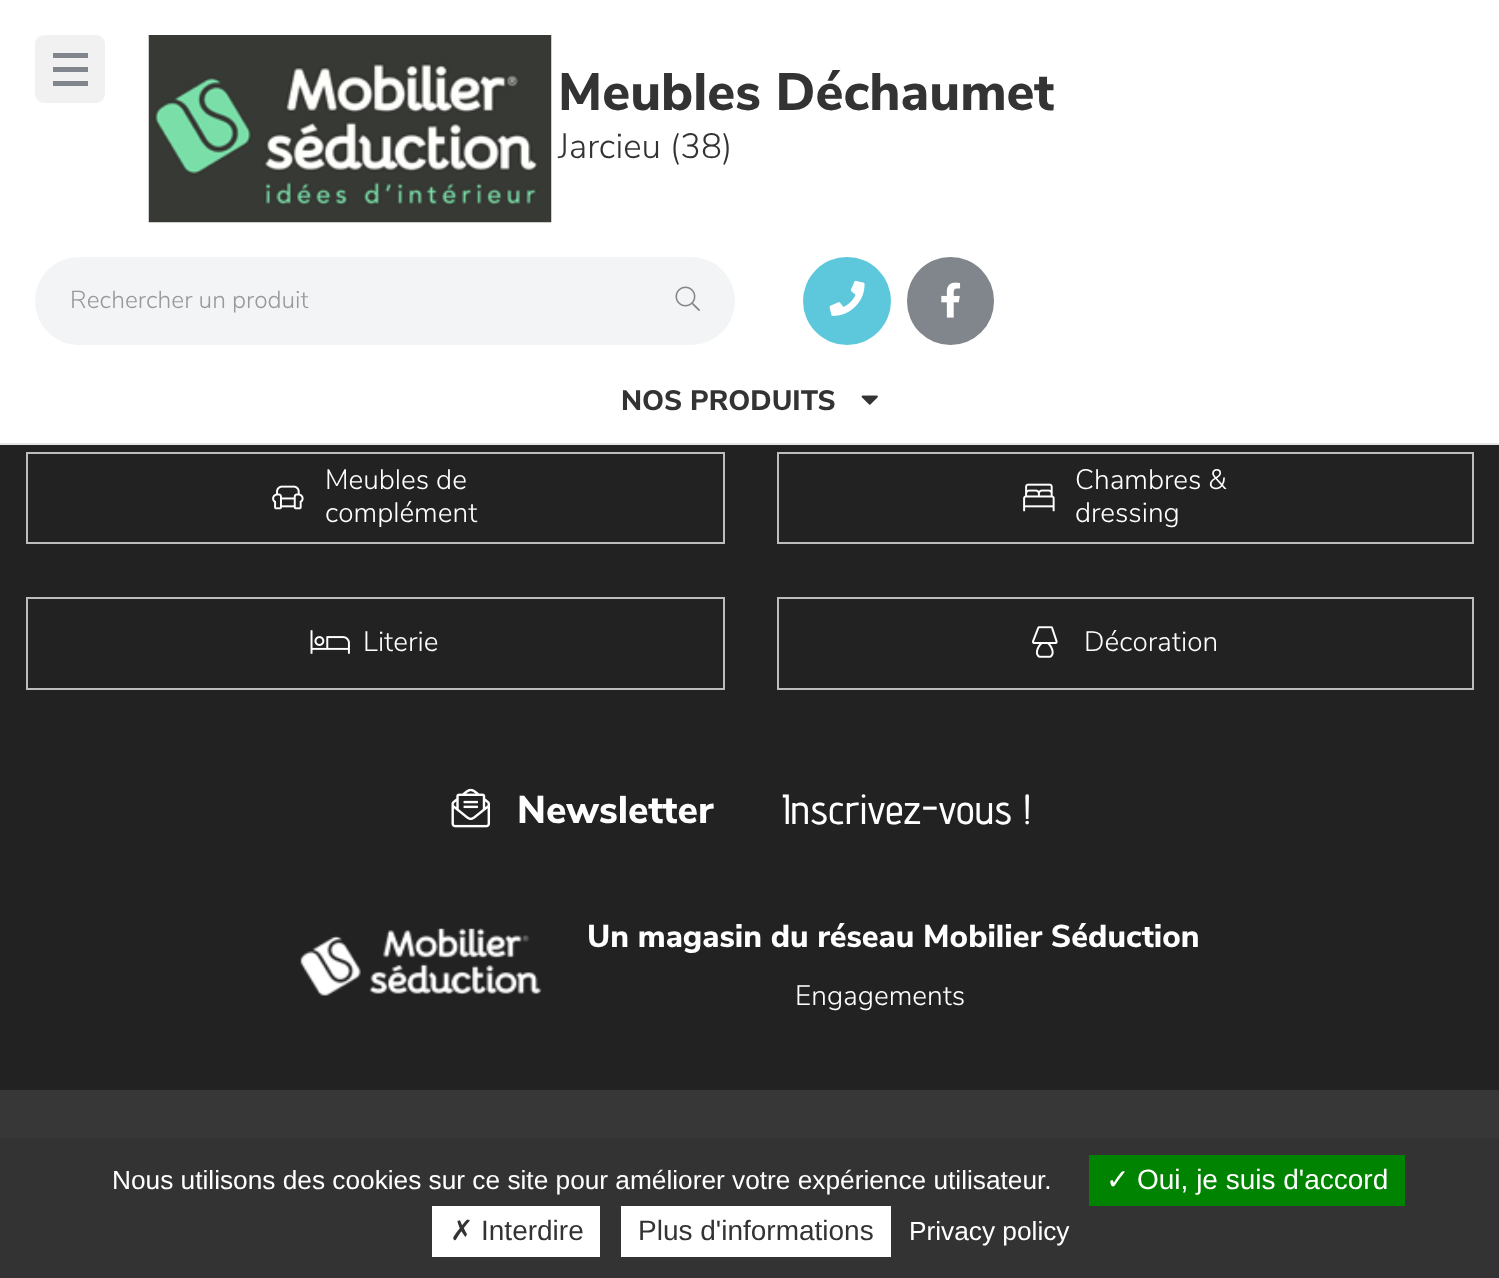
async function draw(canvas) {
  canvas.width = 1499;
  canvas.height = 1278;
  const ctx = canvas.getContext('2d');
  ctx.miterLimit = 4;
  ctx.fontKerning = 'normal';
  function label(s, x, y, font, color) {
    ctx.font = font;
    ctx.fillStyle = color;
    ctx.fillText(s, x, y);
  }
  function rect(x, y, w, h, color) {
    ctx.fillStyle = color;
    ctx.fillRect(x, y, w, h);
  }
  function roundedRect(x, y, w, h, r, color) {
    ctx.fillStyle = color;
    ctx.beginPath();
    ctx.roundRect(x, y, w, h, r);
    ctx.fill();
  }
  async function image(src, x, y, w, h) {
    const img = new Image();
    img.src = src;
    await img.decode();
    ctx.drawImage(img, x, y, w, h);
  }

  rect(0, 0, 1499, 1278, '#222');
  rect(0, 0, 1499, 443, '#fff');
  rect(0, 443, 1499, 2, '#e6e6e6');
  roundedRect(35, 35, 70, 68, 9, '#f1f1f1');
  rect(53, 53, 35, 5, '#80868b');
  rect(53, 67, 35, 5, '#80868b');
  rect(53, 81, 35, 5, '#80868b');
  await image('assets/img1.png', 148, 35, 404, 188);
  label('Meubles Déchaumet', 558, 110, '800 52.5px Nunito Sans', '#333');
  label('Jarcieu (38)', 558, 158, '300 35px Nunito Sans', '#333');
  ctx.fillStyle = '#f2f4f6';
  ctx.beginPath();
  ctx.roundRect(35, 257, 625, 88, [44, 0, 0, 44]);
  ctx.fill();
  label('Rechercher un produit', 70, 308, '300 24.5px Nunito Sans', '#999');
  ctx.fillStyle = '#f2f4f6';
  ctx.beginPath();
  ctx.roundRect(658, 257, 77, 88, [0, 44, 44, 0]);
  ctx.fill();
  await image('assets/img2.png', 675, 286, 25, 25);
  ctx.fillStyle = '#5dc8dc';
  ctx.beginPath();
  ctx.arc(847, 301, 44, 0, 2 * Math.PI);
  ctx.fill();
  await image('assets/img3.png', 829, 280, 36, 36);
  roundedRect(907, 257, 87, 88, 43.5, '#80868b');
  await image('assets/img4.png', 941, 282, 20, 36);
  label('NOS PRODUITS', 621, 410, '800 28px Nunito Sans', '#333');
  await image('assets/img5.png', 861, 395, 17, 10);
  ctx.strokeStyle = '#bdbdbd';
  ctx.lineWidth = 2;
  ctx.strokeRect(27, 453, 697, 90);
  label('Meubles de', 325, 489, '300 28px Nunito Sans', '#fff');
  await image('assets/img6.png', 272, 485, 32, 25);
  label('complément', 325, 522, '300 28px Nunito Sans', '#fff');
  ctx.strokeRect(778, 453, 695, 90);
  label('Chambres &', 1075, 489, '300 28px Nunito Sans', '#fff');
  await image('assets/img7.png', 1023, 483, 32, 29);
  label('dressing', 1075, 522, '300 28px Nunito Sans', '#fff');
  ctx.strokeRect(27, 598, 697, 91);
  await image('assets/img8.png', 310, 630, 40, 24);
  label('Literie', 363, 651, '300 28px Nunito Sans', '#fff');
  ctx.strokeRect(778, 598, 695, 91);
  await image('assets/img9.png', 1032, 626, 26, 32);
  label('Décoration', 1084, 651, '300 28px Nunito Sans', '#fff');
  await image('assets/img10.png', 451, 788, 39, 40);
  label('Newsletter', 517, 823, '800 38.5px Nunito Sans', '#fff');
  label('Inscrivez-vous !', 782, 824, '500 42px Advent Pro', '#fff');
  await image('assets/img11.png', 300, 928, 242, 68);
  label('Un magasin du réseau Mobilier Séduction', 587, 947, '800 31.5px Nunito Sans', '#fff');
  label('Engagements', 795, 1005, '300 28px Nunito Sans', '#fff');
  rect(0, 1090, 1499, 48, '#373737');
  rect(0, 1138, 1499, 140, '#333');
  label('Nous utilisons des cookies sur ce site pour améliorer votre expérience utilisateur.', 112, 1189, '26.25px Liberation Sans', '#fff');
  rect(1089, 1155, 316, 51, '#008300');
  label('✓', 1106, 1189, '28px DejaVu Sans', '#fff');
  label('Oui, je suis d\'accord', 1137, 1189, '28px Liberation Sans', '#fff');
  rect(432, 1206, 168, 51, '#fff');
  label('✗', 450, 1240, '28px DejaVu Sans', '#333');
  label('Interdire', 481, 1240, '28px Liberation Sans', '#333');
  rect(621, 1206, 270, 51, '#fff');
  label('Plus d\'informations', 638, 1240, '28px Liberation Sans', '#333');
  label('Privacy policy', 909, 1240, '26.25px Liberation Sans', '#fff');
}

draw(document.querySelector('canvas'));
